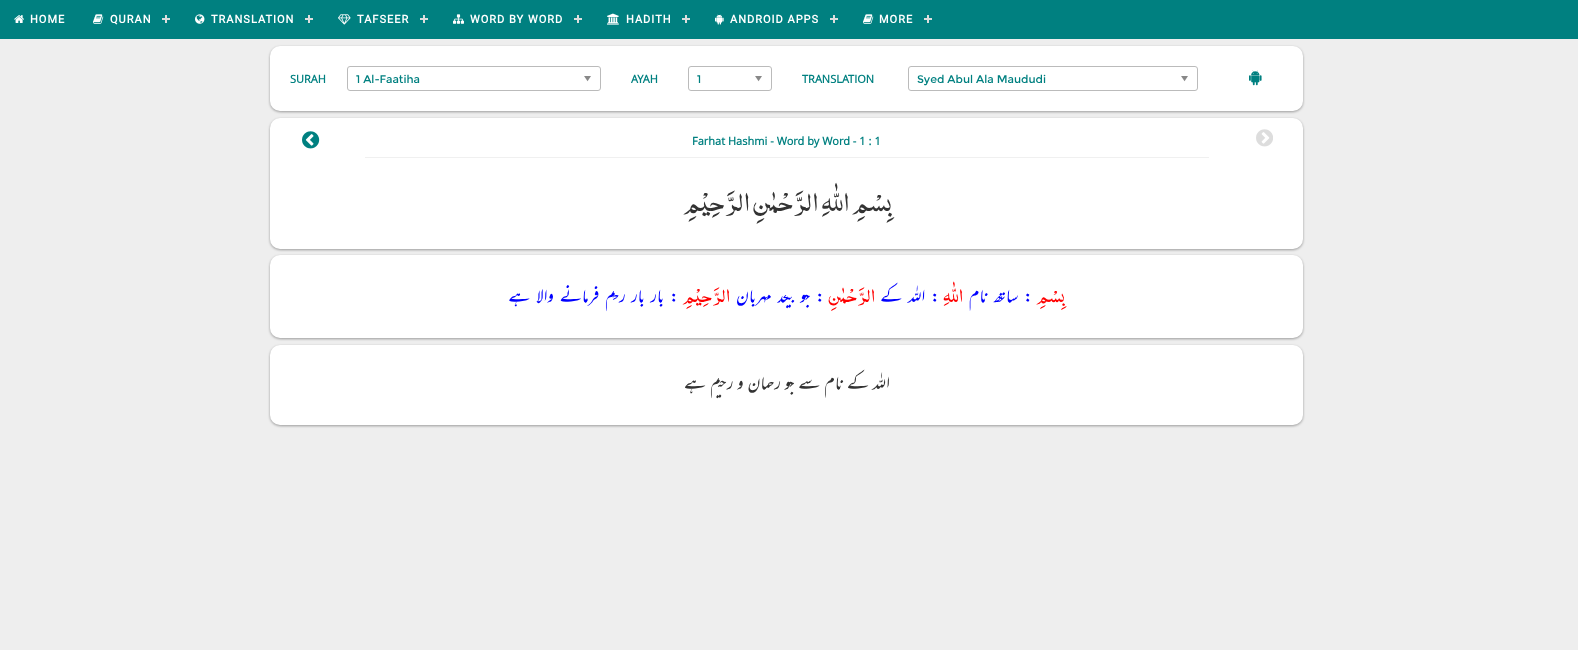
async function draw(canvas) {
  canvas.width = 1578;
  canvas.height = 650;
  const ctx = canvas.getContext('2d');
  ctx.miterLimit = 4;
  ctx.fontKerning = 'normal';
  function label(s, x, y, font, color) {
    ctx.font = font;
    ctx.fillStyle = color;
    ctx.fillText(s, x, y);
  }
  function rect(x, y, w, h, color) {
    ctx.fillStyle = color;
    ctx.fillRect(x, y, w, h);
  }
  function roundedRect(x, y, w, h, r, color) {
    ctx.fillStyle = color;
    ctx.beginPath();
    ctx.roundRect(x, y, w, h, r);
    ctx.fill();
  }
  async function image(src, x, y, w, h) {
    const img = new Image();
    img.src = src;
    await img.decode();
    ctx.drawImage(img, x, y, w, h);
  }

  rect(0, 0, 1578, 650, '#eee');
  rect(0, 0, 1578, 39, '#008080');
  rect(927, 15, 2, 8, '#ddd');
  ctx.letterSpacing = '1px';
  label('MORE', 879, 23, 'bold 11px Roboto', '#fff');
  await image('assets/img1.png', 863, 14, 11, 10);
  rect(924, 18, 8, 2, '#ddd');
  rect(833, 15, 2, 8, '#ddd');
  label('ANDROID APPS', 730, 23, 'bold 11px Roboto', '#fff');
  await image('assets/img2.png', 715, 14, 9, 11);
  rect(830, 18, 8, 2, '#ddd');
  rect(685, 15, 2, 8, '#ddd');
  label('HADITH', 626, 23, 'bold 11px Roboto', '#fff');
  await image('assets/img3.png', 607, 13, 12, 12);
  rect(682, 18, 8, 2, '#ddd');
  rect(577, 15, 2, 8, '#ddd');
  label('WORD BY WORD', 470, 23, 'bold 11px Roboto', '#fff');
  await image('assets/img4.png', 453, 14, 11, 10);
  rect(574, 18, 8, 2, '#ddd');
  rect(423, 15, 2, 8, '#ddd');
  label('TAFSEER', 357, 23, 'bold 11px Roboto', '#fff');
  await image('assets/img5.png', 338, 14, 13, 11);
  rect(420, 18, 8, 2, '#ddd');
  rect(308, 15, 2, 8, '#ddd');
  label('TRANSLATION', 211, 23, 'bold 11px Roboto', '#fff');
  await image('assets/img6.png', 195, 14, 10, 10);
  rect(305, 18, 8, 2, '#ddd');
  rect(165, 15, 2, 8, '#ddd');
  label('QURAN', 110, 23, 'bold 11px Roboto', '#fff');
  await image('assets/img1.png', 93, 14, 11, 10);
  rect(162, 18, 8, 2, '#ddd');
  label('HOME', 30, 23, 'bold 11px Roboto', '#fff');
  await image('assets/img7.png', 14, 15, 10, 8);
  ctx.fillStyle = '#0000003d';
  ctx.filter = 'blur(1px)';
  ctx.beginPath();
  ctx.roundRect(270, 47, 1033, 65, 10);
  ctx.fill();
  ctx.filter = 'none';
  ctx.fillStyle = '#0000001f';
  ctx.filter = 'blur(1.5px)';
  ctx.beginPath();
  ctx.roundRect(270, 47, 1033, 65, 10);
  ctx.fill();
  ctx.filter = 'none';
  roundedRect(270, 46, 1033, 65, 10, '#fff');
  await image('assets/img8.png', 1249, 70, 13, 16);
  ctx.beginPath();
  ctx.roundRect(908.5, 66.5, 289, 24, 2.5);
  ctx.strokeStyle = '#bbb';
  ctx.stroke();
  await image('assets/img9.png', 1181, 76, 7, 6);
  ctx.letterSpacing = '0px';
  label('Syed Abul Ala Maududi', 917, 83, '11px Montserrat', '#008080');
  label('TRANSLATION', 802, 83, 'bold 11px Open Sans', '#008080');
  ctx.beginPath();
  ctx.roundRect(688.5, 66.5, 83, 24, 2.5);
  ctx.stroke();
  await image('assets/img9.png', 755, 76, 7, 6);
  label('1', 697, 83, '11px Montserrat', '#008080');
  label('AYAH', 631, 83, 'bold 11px Open Sans', '#008080');
  ctx.beginPath();
  ctx.roundRect(347.5, 66.5, 253, 24, 2.5);
  ctx.stroke();
  await image('assets/img9.png', 584, 76, 7, 6);
  label('1 Al-Faatiha', 356, 83, '11px Montserrat', '#008080');
  label('SURAH', 290, 83, 'bold 11px Open Sans', '#008080');
  ctx.fillStyle = '#0000003d';
  ctx.filter = 'blur(1px)';
  ctx.beginPath();
  ctx.roundRect(270, 119, 1033, 131, 10);
  ctx.fill();
  ctx.filter = 'none';
  ctx.fillStyle = '#0000001f';
  ctx.filter = 'blur(1.5px)';
  ctx.beginPath();
  ctx.roundRect(270, 119, 1033, 131, 10);
  ctx.fill();
  ctx.filter = 'none';
  roundedRect(270, 118, 1033, 131, 10, '#fff');
  await image('assets/img10.png', 1256, 129, 17, 18);
  rect(365, 157, 844, 1, '#f0f0f0');
  ctx.wordSpacing = '0.1px';
  label('Farhat Hashmi - Word by Word - 1 : 1', 692, 145, 'bold 11px Open Sans', '#008080');
  await image('assets/img11.png', 302, 131, 18, 18);
  ctx.wordSpacing = '0px';
  ctx.direction = 'rtl';
  label('بِسْمِ اللّٰهِ الرَّحْمٰنِ الرَّحِیْمِ', 892, 211, '28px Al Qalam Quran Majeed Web', '#333');
  ctx.fillStyle = '#0000003d';
  ctx.filter = 'blur(1px)';
  ctx.beginPath();
  ctx.roundRect(270, 256, 1033, 83, 10);
  ctx.fill();
  ctx.filter = 'none';
  ctx.fillStyle = '#0000001f';
  ctx.filter = 'blur(1.5px)';
  ctx.beginPath();
  ctx.roundRect(270, 256, 1033, 83, 10);
  ctx.fill();
  ctx.filter = 'none';
  roundedRect(270, 255, 1033, 83, 10, '#fff');
  label('بِسْمِ', 1065, 302, '20px Al Qalam Quran Majeed Web', '#f00');
  ctx.wordSpacing = '3px';
  label(': ساتھ نام', 1033, 302, '20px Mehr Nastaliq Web', '#00f');
  ctx.wordSpacing = '0px';
  label('اللّٰهِ', 963, 302, '20px Al Qalam Quran Majeed Web', '#f00');
  ctx.wordSpacing = '3px';
  label(': اللہ کے', 940, 302, '20px Mehr Nastaliq Web', '#00f');
  ctx.wordSpacing = '0px';
  label('الرَّحْمٰنِ', 875, 302, '20px Al Qalam Quran Majeed Web', '#f00');
  ctx.wordSpacing = '3px';
  label(': جو بیحد مہربان', 825, 302, '20px Mehr Nastaliq Web', '#00f');
  ctx.wordSpacing = '0px';
  label('الرَّحِيْمِ', 730, 302, '20px Al Qalam Quran Majeed Web', '#f00');
  ctx.wordSpacing = '3px';
  label(': بار بار رحم فرمانے والا ہے', 679, 302, '20px Mehr Nastaliq Web', '#00f');
  ctx.fillStyle = '#0000003d';
  ctx.filter = 'blur(1px)';
  ctx.beginPath();
  ctx.roundRect(270, 346, 1033, 80, 10);
  ctx.fill();
  ctx.filter = 'none';
  ctx.fillStyle = '#0000001f';
  ctx.filter = 'blur(1.5px)';
  ctx.beginPath();
  ctx.roundRect(270, 346, 1033, 80, 10);
  ctx.fill();
  ctx.filter = 'none';
  roundedRect(270, 345, 1033, 80, 10, '#fff');
  ctx.wordSpacing = '1px';
  label('اللہ کے نام سے جو رحمان و رحیم ہے', 890, 389, '20px Mehr Nastaliq Web', '#333');
}

draw(document.querySelector('canvas'));
